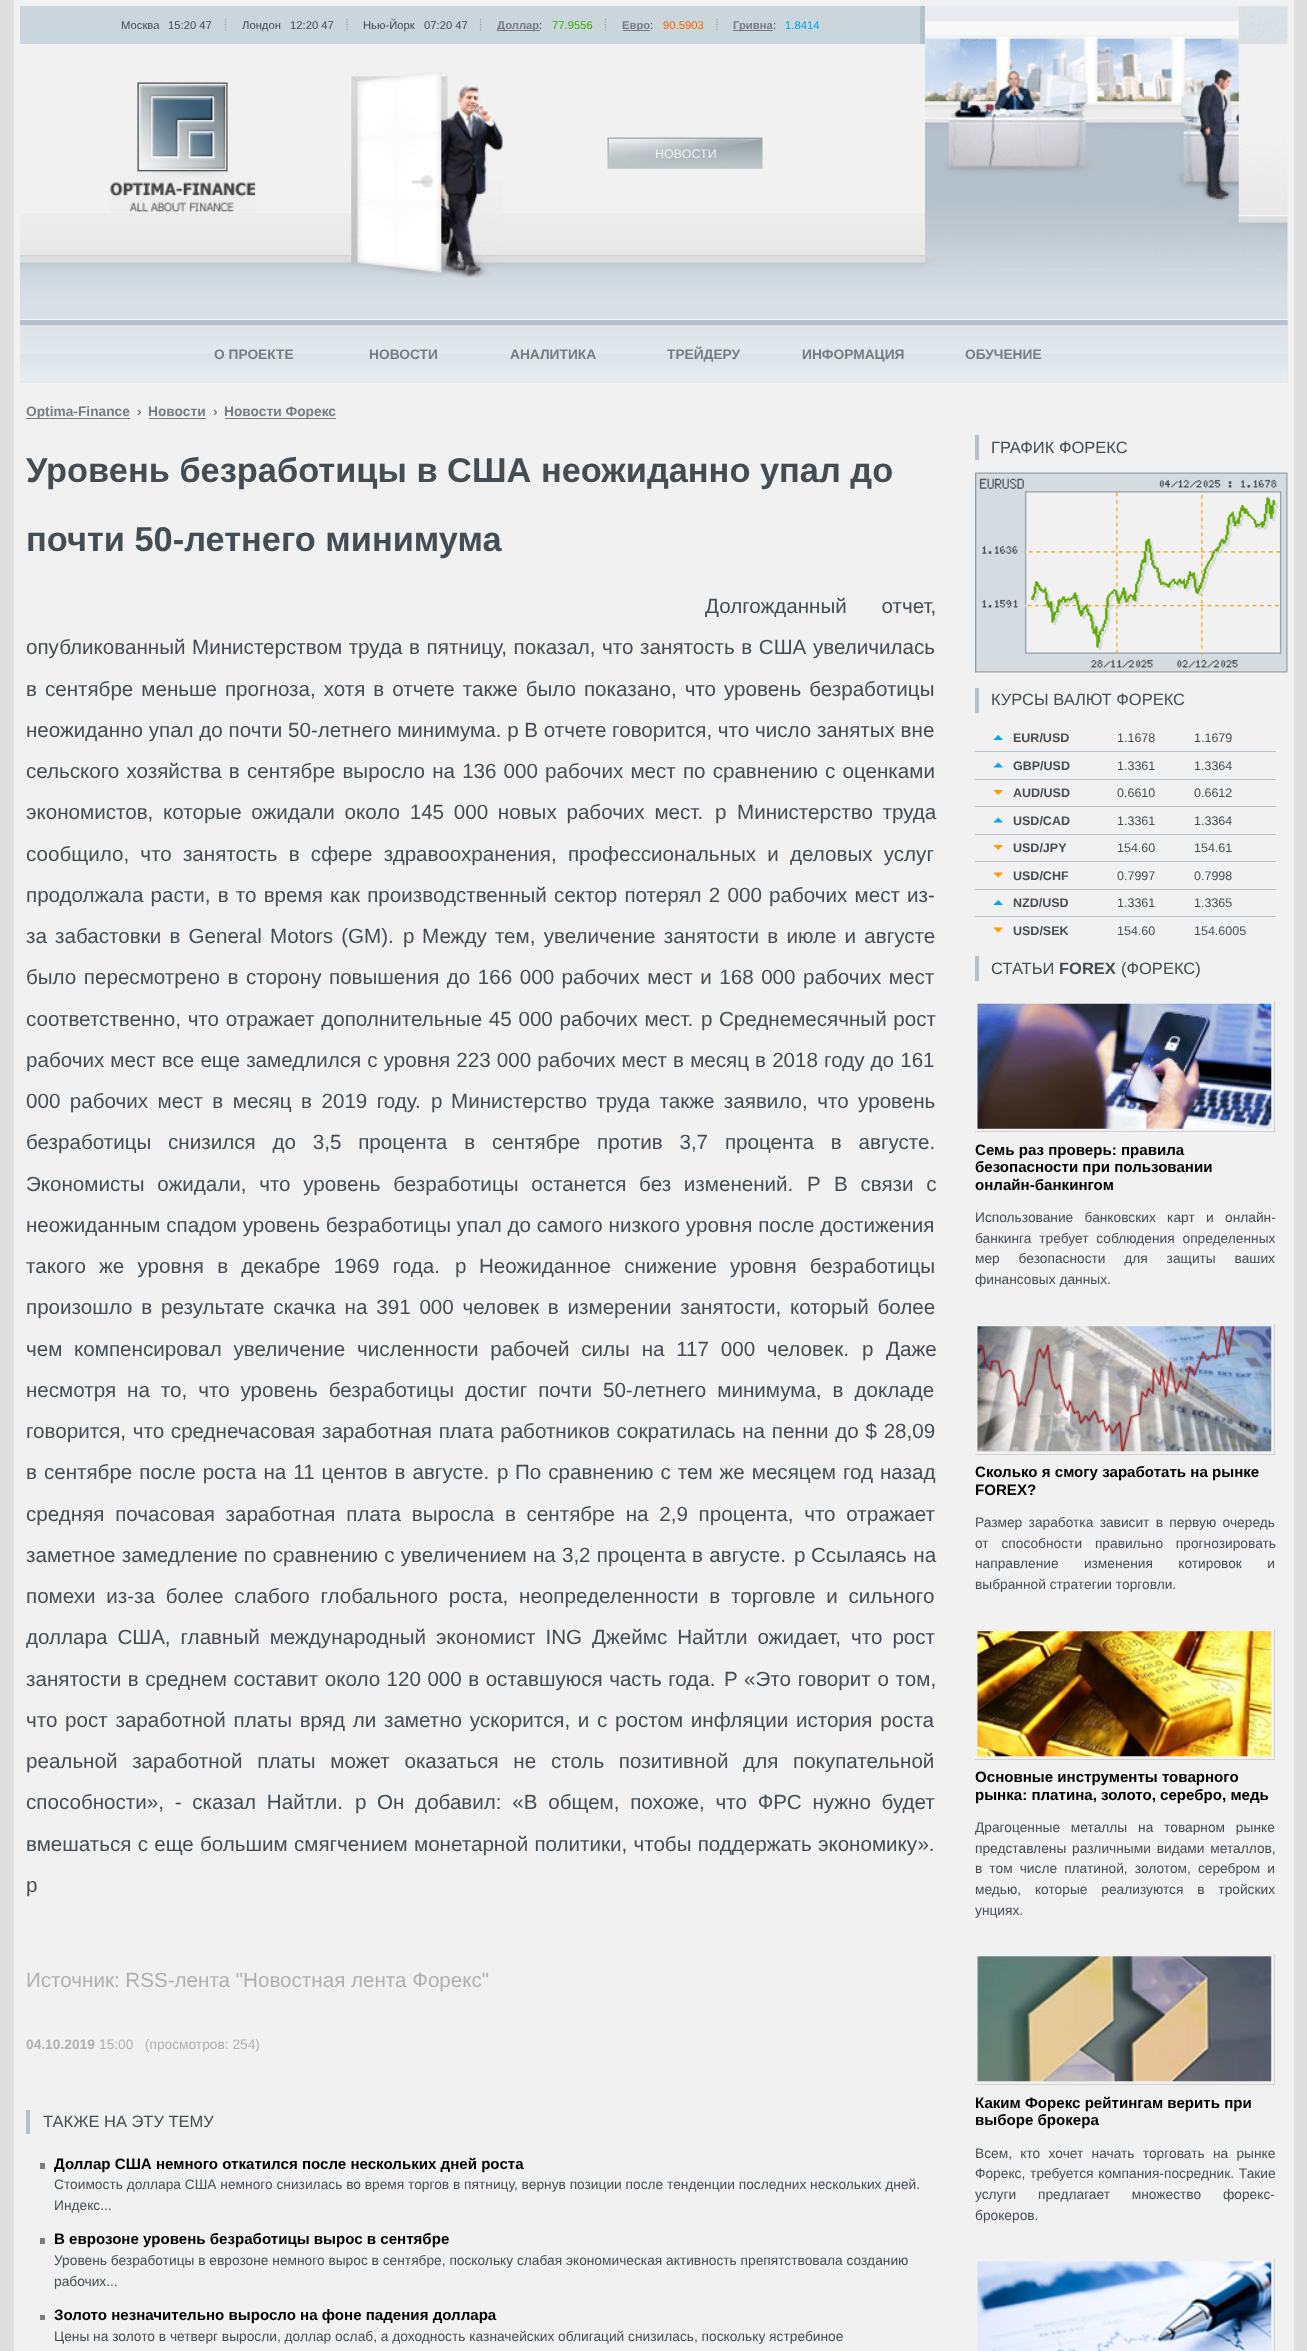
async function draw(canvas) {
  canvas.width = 1307;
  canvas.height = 2351;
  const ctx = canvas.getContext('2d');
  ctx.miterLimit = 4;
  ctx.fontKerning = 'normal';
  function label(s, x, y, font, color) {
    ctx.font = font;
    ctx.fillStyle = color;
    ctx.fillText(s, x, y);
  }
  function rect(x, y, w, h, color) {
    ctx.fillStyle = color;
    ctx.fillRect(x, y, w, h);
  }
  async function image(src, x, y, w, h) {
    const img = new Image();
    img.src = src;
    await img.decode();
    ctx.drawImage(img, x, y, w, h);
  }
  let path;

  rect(0, 0, 1307, 2351, '#dedede');
  rect(14, 0, 1280, 2351, '#f1f1f1');
  await image('assets/img1.png', 20, 213, 1268, 106);
  rect(20, 6, 900, 38, '#cbd5dc');
  rect(920, 6, 5, 38, '#b3c1ca');
  label('Москва', 121, 29, '11.25px Liberation Sans', '#444d54');
  label('15:20 47', 168, 29, '11.25px Liberation Sans', '#444d54');
  path = new Path2D('M225.5 19V31');
  ctx.strokeStyle = '#909fa9';
  ctx.lineWidth = 1.2;
  ctx.setLineDash([1.25, 1.25]);
  ctx.stroke(path);
  label('Лондон', 242, 29, '11.25px Liberation Sans', '#444d54');
  label('12:20 47', 290, 29, '11.25px Liberation Sans', '#444d54');
  path = new Path2D('M347 19V31');
  ctx.stroke(path);
  label('Нью-Йорк', 363, 29, '11.25px Liberation Sans', '#444d54');
  label('07:20 47', 424, 29, '11.25px Liberation Sans', '#444d54');
  path = new Path2D('M480.5 19V31');
  ctx.stroke(path);
  rect(498, 30, 42, 1, '#777d82');
  label('Доллар', 497, 29, 'bold 11.25px Liberation Sans', '#777d82');
  label(':', 539, 29, '11.25px Liberation Sans', '#444d54');
  label('77.9556', 552, 29, '11.25px Liberation Sans', '#3dad06');
  path = new Path2D('M605.5 19V31');
  ctx.stroke(path);
  rect(623, 30, 27, 1, '#777d82');
  label('Евро', 622, 29, 'bold 11.25px Liberation Sans', '#777d82');
  label(':', 650, 29, '11.25px Liberation Sans', '#444d54');
  label('90.5903', 663, 29, '11.25px Liberation Sans', '#fd6500');
  path = new Path2D('M717 19V31');
  ctx.stroke(path);
  rect(733, 30, 40, 1, '#777d82');
  label('Гривна', 733, 29, 'bold 11.25px Liberation Sans', '#777d82');
  label(':', 773, 29, '11.25px Liberation Sans', '#444d54');
  label('1.8414', 785, 29, '11.25px Liberation Sans', '#00a5ea');
  await image('assets/img2.png', 925, 6, 363, 265);
  await image('assets/img3.png', 109, 82, 147, 130);
  await image('assets/img4.png', 351, 71, 152, 207);
  await image('assets/img5.png', 607, 137, 156, 32);
  label('НОВОСТИ', 655, 158, '12.5px Liberation Sans', '#f1f1f1');
  rect(20, 320, 1268, 63, '#e3e4e5');
  await image('assets/img6.png', 20, 320, 1268, 63);
  label('О ПРОЕКТЕ', 214, 359, 'bold 13.75px Liberation Sans', '#777d82');
  label('НОВОСТИ', 369, 359, 'bold 13.75px Liberation Sans', '#777d82');
  label('АНАЛИТИКА', 510, 359, 'bold 13.75px Liberation Sans', '#777d82');
  label('ТРЕЙДЕРУ', 667, 359, 'bold 13.75px Liberation Sans', '#777d82');
  label('ИНФОРМАЦИЯ', 802, 359, 'bold 13.75px Liberation Sans', '#777d82');
  label('ОБУЧЕНИЕ', 965, 359, 'bold 13.75px Liberation Sans', '#777d82');
  rect(26, 418, 104, 1, '#777d82');
  label('Optima-Finance', 26, 416, 'bold 13.75px Liberation Sans', '#777d82');
  label('›', 137, 416, '13.75px Liberation Sans', '#444d54');
  label('Новости', 148, 416, 'bold 13.75px Liberation Sans', '#777d82');
  rect(149, 418, 57, 1, '#777d82');
  label('›', 213, 416, '13.75px Liberation Sans', '#444d54');
  rect(225, 418, 111, 1, '#777d82');
  label('Новости Форекс', 224, 416, 'bold 13.75px Liberation Sans', '#777d82');
  label('Уровень безработицы в США неожиданно упал до', 26, 482, 'bold 34.4px Liberation Sans', '#444d54');
  label('почти 50-летнего минимума', 26, 551, 'bold 34.4px Liberation Sans', '#444d54');
  ctx.wordSpacing = '29px';
  label('Долгожданный отчет,', 705, 613, '20.6px Liberation Sans', '#444d54');
  ctx.wordSpacing = '0.9px';
  label('опубликованный Министерством труда в пятницу, показал, что занятость в США увеличилась', 26, 654, '20.6px Liberation Sans', '#444d54');
  ctx.wordSpacing = '2.25px';
  label('в сентябре меньше прогноза, хотя в отчете также было показано, что уровень безработицы', 26, 696, '20.6px Liberation Sans', '#444d54');
  ctx.wordSpacing = '0px';
  label('неожиданно упал до почти 50-летнего минимума. p В отчете говорится, что число занятых вне', 26, 737, '20.6px Liberation Sans', '#444d54');
  ctx.wordSpacing = '1.4px';
  label('сельского хозяйства в сентябре выросло на 136 000 рабочих мест по сравнению с оценками', 26, 778, '20.6px Liberation Sans', '#444d54');
  ctx.wordSpacing = '4px';
  label('экономистов, которые ожидали около 145 000 новых рабочих мест.', 26, 819, '20.6px Liberation Sans', '#444d54');
  ctx.wordSpacing = '0px';
  label('p', 715, 819, '20.6px Liberation Sans', '#444d54');
  ctx.wordSpacing = '4px';
  label('Министерство труда', 737, 819, '20.6px Liberation Sans', '#444d54');
  ctx.wordSpacing = '5.5px';
  label('сообщило, что занятость в сфере здравоохранения, профессиональных и деловых услуг', 26, 861, '20.6px Liberation Sans', '#444d54');
  ctx.wordSpacing = '1.5px';
  label('продолжала расти, в то время как производственный сектор потерял 2 000 рабочих мест из-', 26, 902, '20.6px Liberation Sans', '#444d54');
  ctx.wordSpacing = '2.5px';
  label('за забастовки в General Motors (GM).', 26, 943, '20.6px Liberation Sans', '#444d54');
  ctx.wordSpacing = '0px';
  label('p', 403, 943, '20.6px Liberation Sans', '#444d54');
  ctx.wordSpacing = '2.5px';
  label('Между тем, увеличение занятости в июле и августе', 422, 943, '20.6px Liberation Sans', '#444d54');
  ctx.wordSpacing = '1.8px';
  label('было пересмотрено в сторону повышения до 166 000 рабочих мест и 168 000 рабочих мест', 26, 984, '20.6px Liberation Sans', '#444d54');
  ctx.wordSpacing = '1px';
  label('соответственно, что отражает дополнительные 45 000 рабочих мест.', 26, 1026, '20.6px Liberation Sans', '#444d54');
  ctx.wordSpacing = '0px';
  label('p', 701, 1026, '20.6px Liberation Sans', '#444d54');
  ctx.wordSpacing = '1px';
  label('Среднемесячный рост', 719, 1026, '20.6px Liberation Sans', '#444d54');
  ctx.wordSpacing = '0.4px';
  label('рабочих мест все еще замедлился с уровня 223 000 рабочих мест в месяц в 2018 году до 161', 26, 1067, '20.6px Liberation Sans', '#444d54');
  ctx.wordSpacing = '3.75px';
  label('000 рабочих мест в месяц в 2019 году.', 26, 1108, '20.6px Liberation Sans', '#444d54');
  ctx.wordSpacing = '0px';
  label('p', 431, 1108, '20.6px Liberation Sans', '#444d54');
  ctx.wordSpacing = '3.75px';
  label('Министерство труда также заявило, что уровень', 451, 1108, '20.6px Liberation Sans', '#444d54');
  ctx.wordSpacing = '11.1px';
  label('безработицы снизился до 3,5 процента в сентябре против 3,7 процента в августе.', 26, 1149, '20.6px Liberation Sans', '#444d54');
  ctx.wordSpacing = '7px';
  label('Экономисты ожидали, что уровень безработицы останется без изменений.', 26, 1191, '20.6px Liberation Sans', '#444d54');
  ctx.wordSpacing = '0px';
  label('P', 807, 1191, '20.6px Liberation Sans', '#444d54');
  ctx.wordSpacing = '7px';
  label('В связи с', 834, 1191, '20.6px Liberation Sans', '#444d54');
  ctx.wordSpacing = '0.1px';
  label('неожиданным спадом уровень безработицы упал до самого низкого уровня после достижения', 26, 1232, '20.6px Liberation Sans', '#444d54');
  ctx.wordSpacing = '7.5px';
  label('такого же уровня в декабре 1969 года.', 26, 1273, '20.6px Liberation Sans', '#444d54');
  ctx.wordSpacing = '0px';
  label('p', 455, 1273, '20.6px Liberation Sans', '#444d54');
  ctx.wordSpacing = '7.5px';
  label('Неожиданное снижение уровня безработицы', 479, 1273, '20.6px Liberation Sans', '#444d54');
  ctx.wordSpacing = '3.1px';
  label('произошло в результате скачка на 391 000 человек в измерении занятости, который более', 26, 1314, '20.6px Liberation Sans', '#444d54');
  ctx.wordSpacing = '6px';
  label('чем компенсировал увеличение численности рабочей силы на 117 000 человек.', 26, 1356, '20.6px Liberation Sans', '#444d54');
  ctx.wordSpacing = '0px';
  label('p', 862, 1356, '20.6px Liberation Sans', '#444d54');
  label('Даже', 886, 1356, '20.6px Liberation Sans', '#444d54');
  ctx.wordSpacing = '5.25px';
  label('несмотря на то, что уровень безработицы достиг почти 50-летнего минимума, в докладе', 26, 1397, '20.6px Liberation Sans', '#444d54');
  ctx.wordSpacing = '1px';
  label('говорится, что среднечасовая заработная плата работников сократилась на пенни до $ 28,09', 26, 1438, '20.6px Liberation Sans', '#444d54');
  ctx.wordSpacing = '1.25px';
  label('в сентябре после роста на 11 центов в августе.', 26, 1479, '20.6px Liberation Sans', '#444d54');
  ctx.wordSpacing = '0px';
  label('p', 497, 1479, '20.6px Liberation Sans', '#444d54');
  ctx.wordSpacing = '1.25px';
  label('По сравнению с тем же месяцем год назад', 515, 1479, '20.6px Liberation Sans', '#444d54');
  ctx.wordSpacing = '5px';
  label('средняя почасовая заработная плата выросла в сентябре на 2,9 процента, что отражает', 26, 1521, '20.6px Liberation Sans', '#444d54');
  ctx.wordSpacing = '0.5px';
  label('заметное замедление по сравнению с увеличением на 3,2 процента в августе.', 26, 1562, '20.6px Liberation Sans', '#444d54');
  ctx.wordSpacing = '0px';
  label('p', 794, 1562, '20.6px Liberation Sans', '#444d54');
  ctx.wordSpacing = '1px';
  label('Ссылаясь на', 811, 1562, '20.6px Liberation Sans', '#444d54');
  ctx.wordSpacing = '5px';
  label('помехи из-за более слабого глобального роста, неопределенности в торговле и сильного', 26, 1603, '20.6px Liberation Sans', '#444d54');
  ctx.wordSpacing = '4.25px';
  label('доллара США, главный международный экономист ING Джеймс Найтли ожидает, что рост', 26, 1644, '20.6px Liberation Sans', '#444d54');
  ctx.wordSpacing = '0.75px';
  label('занятости в среднем составит около 120 000 в оставшуюся часть года.', 26, 1686, '20.6px Liberation Sans', '#444d54');
  ctx.wordSpacing = '0px';
  label('Р', 724, 1686, '20.6px Liberation Sans', '#444d54');
  ctx.wordSpacing = '1px';
  label('«Это говорит о том,', 744, 1686, '20.6px Liberation Sans', '#444d54');
  ctx.wordSpacing = '2px';
  label('что рост заработной платы вряд ли заметно ускорится, и с ростом инфляции история роста', 26, 1727, '20.6px Liberation Sans', '#444d54');
  ctx.wordSpacing = '9px';
  label('реальной заработной платы может оказаться не столь позитивной для покупательной', 26, 1768, '20.6px Liberation Sans', '#444d54');
  ctx.wordSpacing = '5px';
  label('способности», - сказал Найтли.', 26, 1809, '20.6px Liberation Sans', '#444d54');
  ctx.wordSpacing = '0px';
  label('p', 355, 1809, '20.6px Liberation Sans', '#444d54');
  ctx.wordSpacing = '5px';
  label('Он добавил: «В общем, похоже, что ФРС нужно будет', 377, 1809, '20.6px Liberation Sans', '#444d54');
  ctx.wordSpacing = '0.5px';
  label('вмешаться с еще большим смягчением монетарной политики, чтобы поддержать экономику».', 26, 1851, '20.6px Liberation Sans', '#444d54');
  ctx.wordSpacing = '0px';
  label('p', 26, 1892, '20.6px Liberation Sans', '#444d54');
  label('Источник: RSS-лента "Новостная лента Форекс"', 26, 1987, '20.6px Liberation Sans', '#b0b0b0');
  label('04.10.2019', 26, 2049, 'bold 13.75px Liberation Sans', '#b0b0b0');
  label('15:00   (просмотров: 254)', 99, 2049, '13.75px Liberation Sans', '#b0b0b0');
  rect(26, 2110, 4, 24, '#b3c1ca');
  label('ТАКЖЕ НА ЭТУ ТЕМУ', 43, 2127, '16.5px Liberation Sans', '#444d54');
  rect(40, 2163, 5, 6, '#777d82');
  label('Доллар США немного откатился после нескольких дней роста', 54, 2169, 'bold 15.1px Liberation Sans', '#000');
  label('Стоимость доллара США немного снизилась во время торгов в пятницу, вернув позиции после тенденции последних нескольких дней.', 54, 2189, '13.75px Liberation Sans', '#444d54');
  label('Индекс...', 54, 2210, '13.75px Liberation Sans', '#444d54');
  rect(40, 2238, 5, 6, '#777d82');
  label('В еврозоне уровень безработицы вырос в сентябре', 54, 2244, 'bold 15.1px Liberation Sans', '#000');
  label('Уровень безработицы в еврозоне немного вырос в сентябре, поскольку слабая экономическая активность препятствовала созданию', 54, 2265, '13.75px Liberation Sans', '#444d54');
  label('рабочих...', 54, 2286, '13.75px Liberation Sans', '#444d54');
  rect(40, 2315, 5, 5, '#777d82');
  label('Золото незначительно выросло на фоне падения доллара', 54, 2320, 'bold 15.1px Liberation Sans', '#000');
  label('Цены на золото в четверг выросли, доллар ослаб, а доходность казначейских облигаций снизилась, поскольку ястребиное', 54, 2341, '13.75px Liberation Sans', '#444d54');
  rect(975, 435, 4, 25, '#b3c1ca');
  label('ГРАФИК ФОРЕКС', 991, 453, '16.5px Liberation Sans', '#444d54');
  await image('assets/img7.png', 975, 472, 313, 201);
  rect(975, 688, 4, 25, '#b3c1ca');
  label('КУРСЫ ВАЛЮТ ФОРЕКС', 991, 705, '16.5px Liberation Sans', '#444d54');
  await image('assets/img8.png', 993, 735, 10, 5);
  label('EUR/USD', 1013, 742, 'bold 12.5px Liberation Sans', '#444d54');
  label('1.1678', 1117, 742, '12.5px Liberation Sans', '#444d54');
  label('1.1679', 1194, 742, '12.5px Liberation Sans', '#444d54');
  await image('assets/img9.png', 993, 762, 10, 6);
  label('GBP/USD', 1013, 770, 'bold 12.5px Liberation Sans', '#444d54');
  label('1.3361', 1117, 770, '12.5px Liberation Sans', '#444d54');
  rect(975, 751, 301, 1, '#b9c5ce');
  label('1.3364', 1194, 770, '12.5px Liberation Sans', '#444d54');
  await image('assets/img10.png', 993, 790, 10, 5);
  label('AUD/USD', 1013, 797, 'bold 12.5px Liberation Sans', '#444d54');
  label('0.6610', 1117, 797, '12.5px Liberation Sans', '#444d54');
  rect(975, 779, 301, 1, '#b9c5ce');
  label('0.6612', 1194, 797, '12.5px Liberation Sans', '#444d54');
  await image('assets/img9.png', 993, 817, 10, 6);
  label('USD/CAD', 1013, 825, 'bold 12.5px Liberation Sans', '#444d54');
  label('1.3361', 1117, 825, '12.5px Liberation Sans', '#444d54');
  rect(975, 806, 301, 1, '#b9c5ce');
  label('1.3364', 1194, 825, '12.5px Liberation Sans', '#444d54');
  await image('assets/img10.png', 993, 845, 10, 5);
  label('USD/JPY', 1013, 852, 'bold 12.5px Liberation Sans', '#444d54');
  label('154.60', 1117, 852, '12.5px Liberation Sans', '#444d54');
  rect(975, 834, 301, 1, '#b9c5ce');
  label('154.61', 1194, 852, '12.5px Liberation Sans', '#444d54');
  await image('assets/img11.png', 993, 872, 10, 6);
  label('USD/CHF', 1013, 880, 'bold 12.5px Liberation Sans', '#444d54');
  label('0.7997', 1117, 880, '12.5px Liberation Sans', '#444d54');
  rect(975, 861, 301, 1, '#b9c5ce');
  label('0.7998', 1194, 880, '12.5px Liberation Sans', '#444d54');
  await image('assets/img8.png', 993, 900, 10, 5);
  label('NZD/USD', 1013, 907, 'bold 12.5px Liberation Sans', '#444d54');
  label('1.3361', 1117, 907, '12.5px Liberation Sans', '#444d54');
  rect(975, 889, 301, 1, '#b9c5ce');
  label('1.3365', 1194, 907, '12.5px Liberation Sans', '#444d54');
  await image('assets/img11.png', 993, 927, 10, 6);
  label('USD/SEK', 1013, 935, 'bold 12.5px Liberation Sans', '#444d54');
  label('154.60', 1117, 935, '12.5px Liberation Sans', '#444d54');
  rect(975, 916, 301, 1, '#b9c5ce');
  label('154.6005', 1194, 935, '12.5px Liberation Sans', '#444d54');
  rect(975, 956, 4, 25, '#b3c1ca');
  label('СТАТЬИ', 991, 974, '16.5px Liberation Sans', '#444d54');
  label('FOREX', 1059, 974, 'bold 16.5px Liberation Sans', '#444d54');
  label('(ФОРЕКС)', 1121, 974, '16.5px Liberation Sans', '#444d54');
  await image('assets/img12.png', 977, 1003, 295, 126);
  rect(1274, 1001, 1, 132, '#d0d0d0');
  rect(975, 1131, 300, 1, '#d0d0d0');
  label('Семь раз проверь: правила', 975, 1155, 'bold 15.1px Liberation Sans', '#000');
  label('безопасности при пользовании', 975, 1172, 'bold 15.1px Liberation Sans', '#000');
  label('онлайн-банкингом', 975, 1190, 'bold 15.1px Liberation Sans', '#000');
  ctx.wordSpacing = '7.5px';
  label('Использование банковских карт и онлайн-', 975, 1222, '13.75px Liberation Sans', '#444d54');
  ctx.wordSpacing = '4px';
  label('банкинга требует соблюдения определенных', 975, 1243, '13.75px Liberation Sans', '#444d54');
  ctx.wordSpacing = '15px';
  label('мер безопасности для защиты ваших', 975, 1263, '13.75px Liberation Sans', '#444d54');
  ctx.wordSpacing = '0px';
  label('финансовых данных.', 975, 1284, '13.75px Liberation Sans', '#444d54');
  await image('assets/img13.png', 977, 1326, 295, 126);
  rect(1274, 1324, 1, 131, '#d0d0d0');
  rect(975, 1454, 300, 1, '#d0d0d0');
  label('Сколько я смогу заработать на рынке', 975, 1477, 'bold 15.1px Liberation Sans', '#000');
  label('FOREX?', 975, 1495, 'bold 15.1px Liberation Sans', '#000');
  ctx.wordSpacing = '2.5px';
  label('Размер заработка зависит в первую очередь', 975, 1527, '13.75px Liberation Sans', '#444d54');
  ctx.wordSpacing = '9px';
  label('от способности правильно прогнозировать', 975, 1548, '13.75px Liberation Sans', '#444d54');
  ctx.wordSpacing = '21.5px';
  label('направление изменения котировок и', 975, 1568, '13.75px Liberation Sans', '#444d54');
  ctx.wordSpacing = '0px';
  label('выбранной стратегии торговли.', 975, 1589, '13.75px Liberation Sans', '#444d54');
  await image('assets/img14.png', 977, 1631, 295, 126);
  rect(1274, 1629, 1, 131, '#d0d0d0');
  rect(975, 1759, 300, 1, '#d0d0d0');
  label('Основные инструменты товарного', 975, 1782, 'bold 15.1px Liberation Sans', '#000');
  label('рынка: платина, золото, серебро, медь', 975, 1800, 'bold 15.1px Liberation Sans', '#000');
  ctx.wordSpacing = '7px';
  label('Драгоценные металлы на товарном рынке', 975, 1832, '13.75px Liberation Sans', '#444d54');
  ctx.wordSpacing = '2px';
  label('представлены различными видами металлов,', 975, 1853, '13.75px Liberation Sans', '#444d54');
  ctx.wordSpacing = '3.25px';
  label('в том числе платиной, золотом, серебром и', 975, 1873, '13.75px Liberation Sans', '#444d54');
  ctx.wordSpacing = '10px';
  label('медью, которые реализуются в тройских', 975, 1894, '13.75px Liberation Sans', '#444d54');
  ctx.wordSpacing = '0px';
  label('унциях.', 975, 1915, '13.75px Liberation Sans', '#444d54');
  await image('assets/img15.png', 977, 1956, 295, 126);
  rect(1274, 1954, 1, 131, '#d0d0d0');
  rect(975, 2084, 300, 1, '#d0d0d0');
  label('Каким Форекс рейтингам верить при', 975, 2108, 'bold 15.1px Liberation Sans', '#000');
  label('выборе брокера', 975, 2125, 'bold 15.1px Liberation Sans', '#000');
  ctx.wordSpacing = '4.5px';
  label('Всем, кто хочет начать торговать на рынке', 975, 2158, '13.75px Liberation Sans', '#444d54');
  ctx.wordSpacing = '1px';
  label('Форекс, требуется компания-посредник. Такие', 975, 2178, '13.75px Liberation Sans', '#444d54');
  ctx.wordSpacing = '18px';
  label('услуги предлагает множество форекс-', 975, 2199, '13.75px Liberation Sans', '#444d54');
  ctx.wordSpacing = '0px';
  label('брокеров.', 975, 2220, '13.75px Liberation Sans', '#444d54');
  await image('assets/img16.png', 977, 2261, 295, 90);
  rect(1274, 2259, 1, 92, '#d0d0d0');
}

draw(document.querySelector('canvas'));
